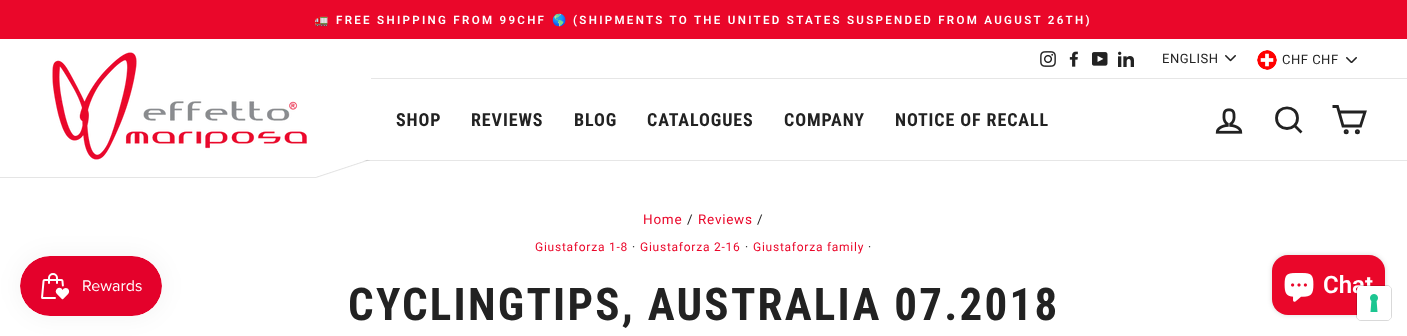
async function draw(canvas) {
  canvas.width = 1407;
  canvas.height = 336;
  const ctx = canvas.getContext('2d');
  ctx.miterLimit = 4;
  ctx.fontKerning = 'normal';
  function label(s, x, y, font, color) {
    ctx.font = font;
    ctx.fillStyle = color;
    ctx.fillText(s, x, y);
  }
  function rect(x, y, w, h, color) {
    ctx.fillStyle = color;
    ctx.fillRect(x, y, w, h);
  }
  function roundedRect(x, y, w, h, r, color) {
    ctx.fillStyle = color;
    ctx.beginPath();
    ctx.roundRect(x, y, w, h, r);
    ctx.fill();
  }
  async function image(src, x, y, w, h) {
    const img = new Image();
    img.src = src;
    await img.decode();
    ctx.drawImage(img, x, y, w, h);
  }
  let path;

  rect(0, 0, 1407, 336, '#fff');
  ctx.fillStyle = '#0000000d';
  ctx.filter = 'blur(12.5px)';
  ctx.beginPath();
  ctx.roundRect(20, 256, 142, 60, 30);
  ctx.fill();
  ctx.filter = 'none';
  await image('assets/img1.png', 20, 256, 142, 60);
  rect(0, 0, 1407, 39, '#ea072a');
  ctx.letterSpacing = '2.3px';
  label('🚛', 314, 24, 'bold 11.55px Noto Color Emoji', '#fff');
  label('FREE SHIPPING FROM 99CHF', 336, 24, '600 11.55px Roboto', '#fff');
  label('🌎', 552, 24, 'bold 11.55px Noto Color Emoji', '#fff');
  label('(SHIPMENTS TO THE UNITED STATES SUSPENDED FROM AUGUST 26TH)', 573, 24, '600 11.55px Roboto', '#fff');
  await image('assets/img2.png', 1040, 51, 16, 16);
  await image('assets/img3.png', 1069, 51, 9, 16);
  await image('assets/img4.png', 1092, 52, 16, 14);
  await image('assets/img5.png', 1118, 51, 16, 16);
  await image('assets/img6.png', 1225, 55, 11, 7);
  ctx.letterSpacing = '0.5px';
  label('ENGLISH', 1162, 63, '13px Roboto', '#222');
  await image('assets/img7.png', 1346, 57, 11, 6);
  await image('assets/img8.png', 1257, 50, 20, 20);
  label('CHF CHF', 1282, 64, '13px Roboto', '#222');
  rect(371, 78, 1036, 1, '#e6e6e6');
  rect(363, 160, 1044, 1, '#e6e6e6');
  ctx.fillStyle = '#0000001a';
  path = new Path2D('M-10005 177L-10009 178H316L434 139H430L315 177Z');
  ctx.fill(path);
  ctx.fillStyle = '#fff';
  path = new Path2D('M-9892 138H433L315 177H-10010Z');
  ctx.fill(path);
  await image('assets/img9.png', 52, 52, 255, 108);
  ctx.letterSpacing = '0.9px';
  label('SHOP', 396, 126, 'bold 18px Roboto Condensed', '#222');
  label('REVIEWS', 471, 126, 'bold 18px Roboto Condensed', '#222');
  label('BLOG', 574, 126, 'bold 18px Roboto Condensed', '#222');
  label('CATALOGUES', 647, 126, 'bold 18px Roboto Condensed', '#222');
  label('COMPANY', 784, 126, 'bold 18px Roboto Condensed', '#222');
  label('NOTICE OF RECALL', 895, 126, 'bold 18px Roboto Condensed', '#222');
  rect(368, 139, 66, 21, '#fff');
  await image('assets/img10.png', 1215, 108, 28, 26);
  path = new Path2D('M1297.5 118C1297.5 132 1276.5 132 1276.5 118C1276.5 104.5 1297.5 104.5 1297.5 118ZM1301.5 132.5L1294.5 125.5');
  ctx.strokeStyle = '#222';
  ctx.lineWidth = 2.8;
  ctx.stroke(path);
  path = new Path2D('M1339 112H1365L1360.5 126H1343L1337.5 106.5H1332.5');
  ctx.stroke(path);
  ctx.beginPath();
  ctx.arc(1346.2, 131.8, 1.1, 0, 2 * Math.PI);
  ctx.stroke();
  ctx.beginPath();
  ctx.arc(1357.4, 131.8, 1.1, 0, 2 * Math.PI);
  ctx.stroke();
  ctx.letterSpacing = '0.75px';
  label('Home', 643, 224, '13.5px Roboto', '#ea072a');
  label('/', 687, 224, '13.5px Roboto', '#222');
  label('Reviews', 698, 224, '13.5px Roboto', '#ea072a');
  label('/', 757, 224, '13.5px Roboto', '#222');
  label('Giustaforza 1-8', 535, 251, '12px Roboto', '#ea072a');
  label('·', 632, 251, '12px Roboto', '#222');
  label('Giustaforza 2-16', 640, 251, '12px Roboto', '#ea072a');
  label('·', 745, 251, '12px Roboto', '#222');
  label('Giustaforza family', 753, 251, '12px Roboto', '#ea072a');
  label('·', 868, 251, '12px Roboto', '#222');
  ctx.letterSpacing = '2.25px';
  label('CYCLINGTIPS, AUSTRALIA 07.2018', 348, 320, 'bold 45px Roboto Condensed', '#222');
  ctx.fillStyle = '#00000026';
  ctx.filter = 'blur(2.5px)';
  ctx.beginPath();
  ctx.roundRect(1272, 255, 113, 60, 16);
  ctx.fill();
  ctx.filter = 'none';
  roundedRect(1272, 255, 113, 60, 16, '#ea072a');
  await image('assets/img11.png', 1284, 273, 30, 29);
  ctx.letterSpacing = '0px';
  label('Chat', 1323, 293, '600 24px Roboto', '#fff');
  ctx.beginPath();
  ctx.roundRect(1356.5, 285.5, 35, 35, 4.5);
  ctx.strokeStyle = '#00000026';
  ctx.lineWidth = 1;
  ctx.stroke();
  roundedRect(1357, 286, 34, 34, 4, '#fff');
  await image('assets/img12.png', 1370, 294, 8, 18);
}

draw(document.querySelector('canvas'));
